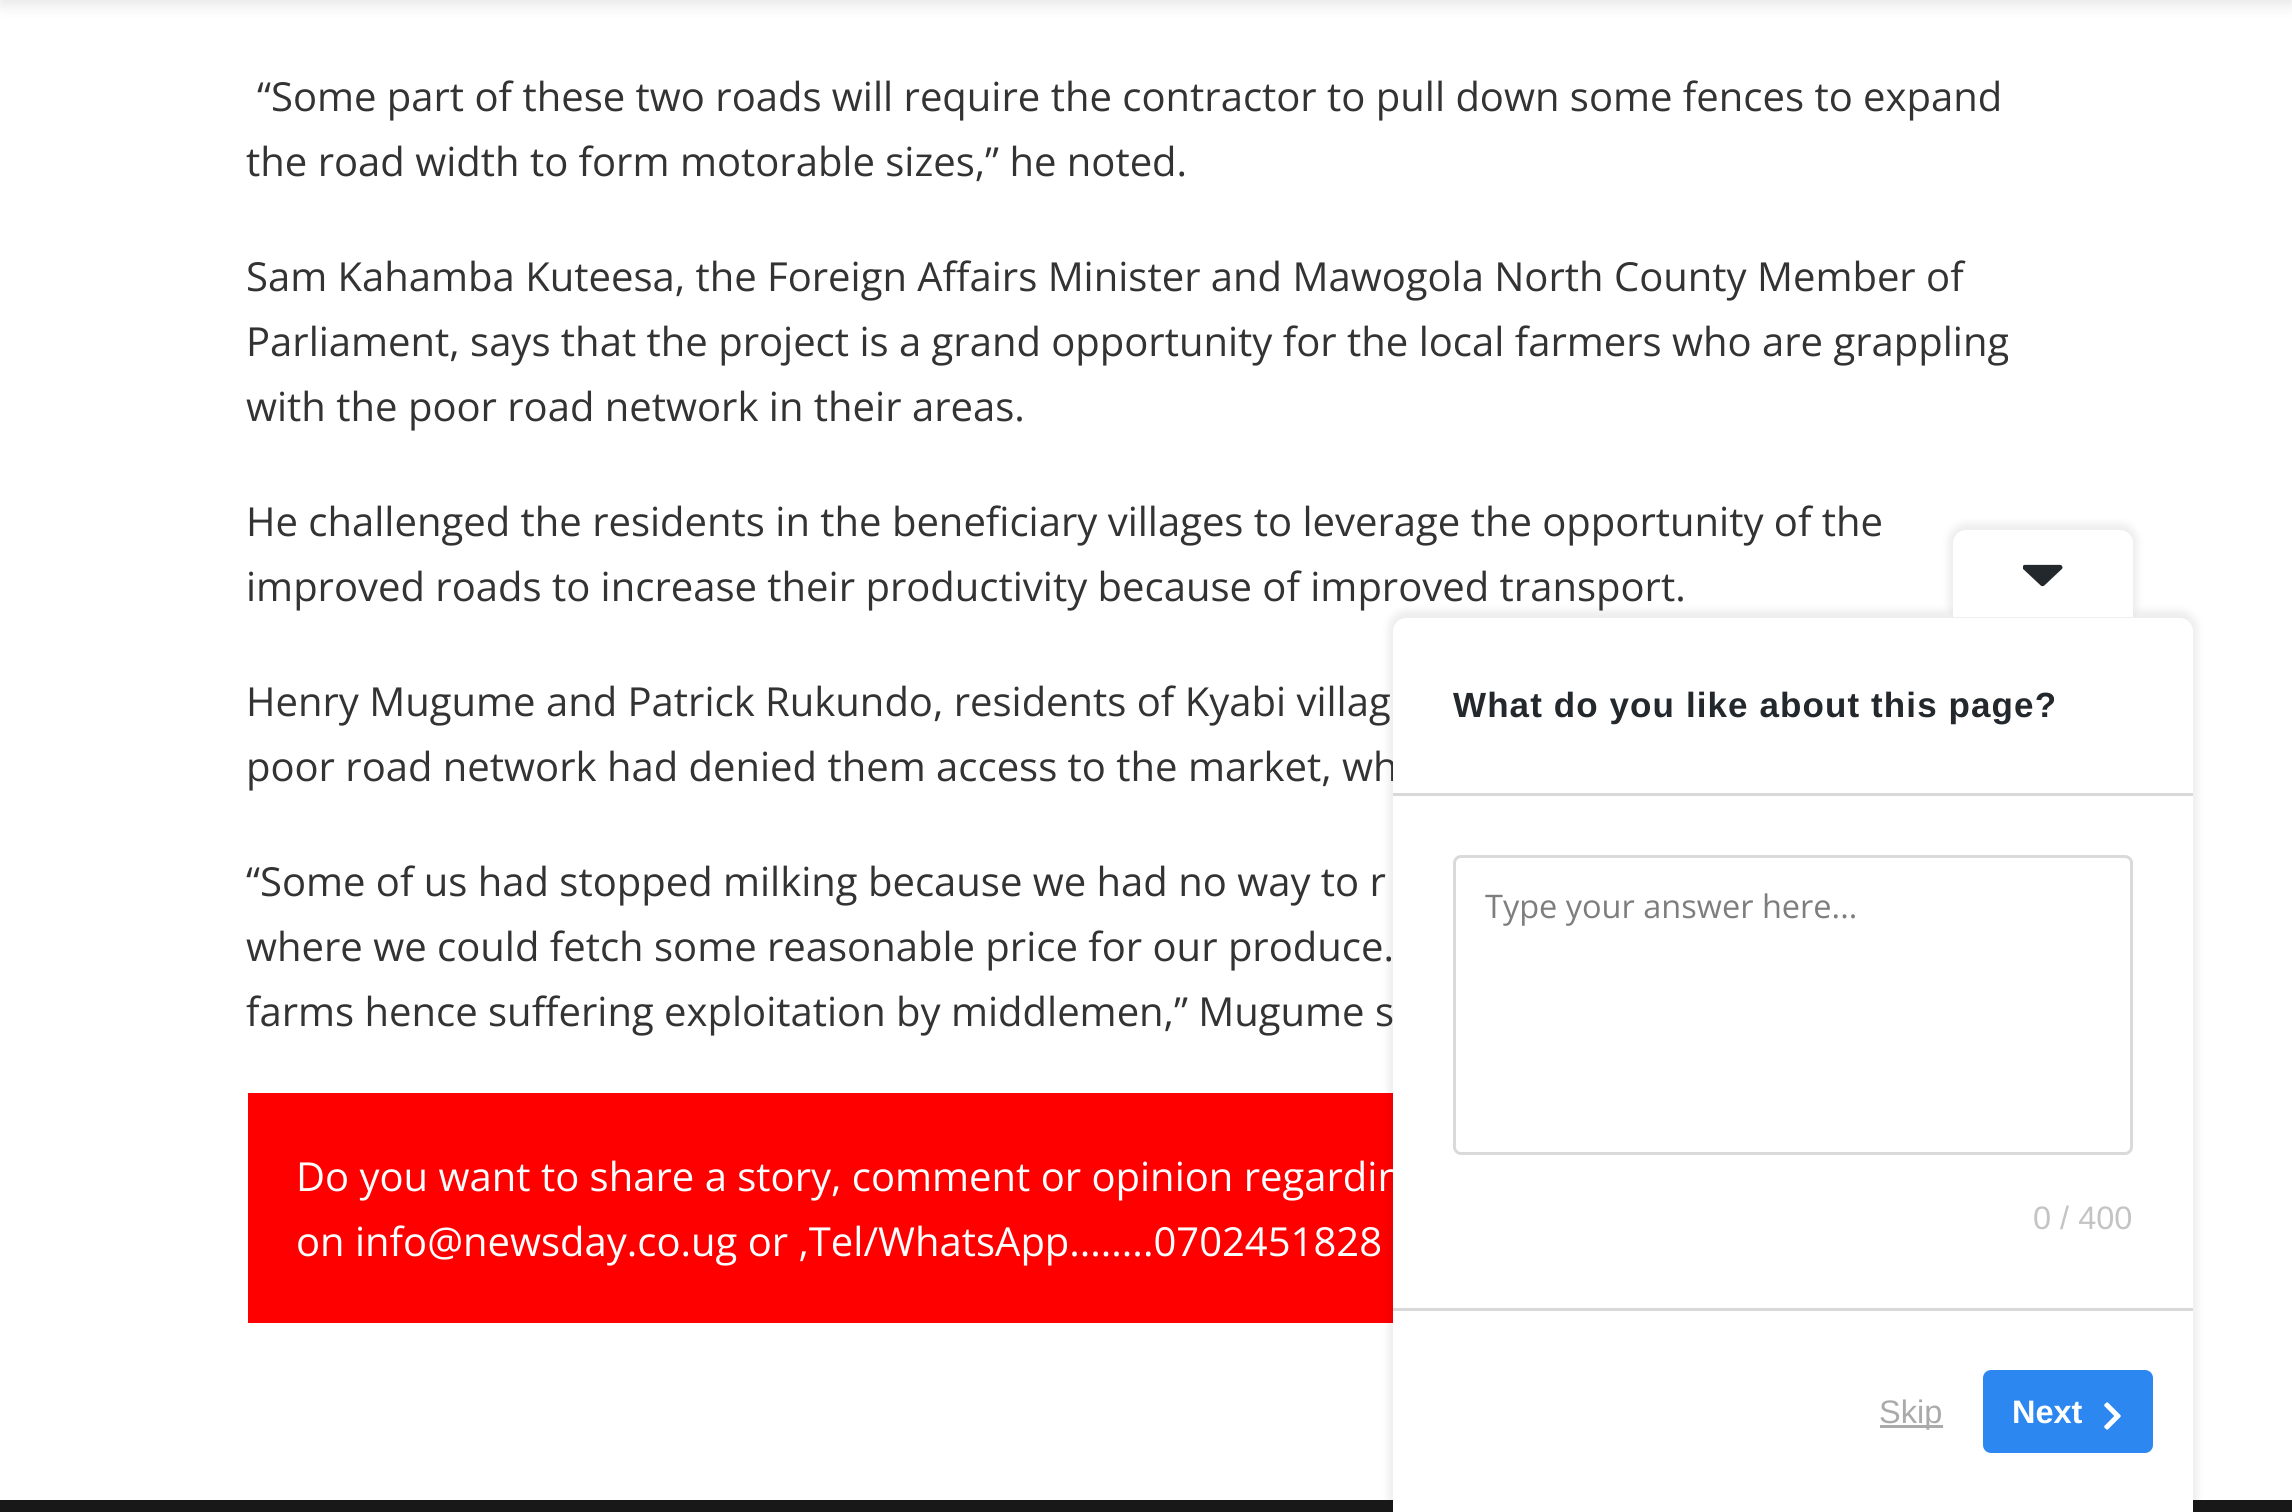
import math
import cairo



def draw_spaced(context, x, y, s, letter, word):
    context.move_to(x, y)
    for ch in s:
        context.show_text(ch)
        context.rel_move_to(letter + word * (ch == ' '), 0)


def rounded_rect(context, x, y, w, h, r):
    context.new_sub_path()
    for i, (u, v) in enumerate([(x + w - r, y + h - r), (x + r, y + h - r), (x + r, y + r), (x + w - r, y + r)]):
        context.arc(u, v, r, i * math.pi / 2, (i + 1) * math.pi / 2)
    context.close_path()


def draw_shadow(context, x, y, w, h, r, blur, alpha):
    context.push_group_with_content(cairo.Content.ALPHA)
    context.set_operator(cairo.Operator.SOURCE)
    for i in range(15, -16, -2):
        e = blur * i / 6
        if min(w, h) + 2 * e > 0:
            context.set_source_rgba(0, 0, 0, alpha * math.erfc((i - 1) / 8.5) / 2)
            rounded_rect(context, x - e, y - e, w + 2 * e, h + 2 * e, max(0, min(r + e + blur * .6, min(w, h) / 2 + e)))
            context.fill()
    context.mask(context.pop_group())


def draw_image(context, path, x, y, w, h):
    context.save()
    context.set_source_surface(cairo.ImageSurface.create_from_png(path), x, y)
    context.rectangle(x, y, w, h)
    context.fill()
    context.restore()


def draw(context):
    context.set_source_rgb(1, 1, 1)
    context.paint()
    context.set_source_rgb(0, 0, 0)
    draw_shadow(context, 0, -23, 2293, 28, 0, 7.5, 0.1)
    context.set_source_rgb(1, 0, 0)
    context.rectangle(248, 1093, 1145, 230)
    context.fill()
    context.set_source_rgb(25 / 255, 24 / 255, 24 / 255)
    context.rectangle(0, 1500, 2292, 12)
    context.fill()
    context.set_source_rgb(0, 0, 0)
    draw_shadow(context, 1388, 610, 810, 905, 18, 4, 0.07)
    context.select_font_face("Open Sans")
    context.set_font_size(40)
    context.set_source_rgb(51 / 255, 51 / 255, 51 / 255)
    context.move_to(257, 111)
    context.show_text("“Some part of these two roads will require the contractor to pull down some fences to expand")
    context.move_to(246, 176)
    context.show_text("the road width to form motorable sizes,” he noted.")
    context.move_to(246, 291)
    context.show_text("Sam Kahamba Kuteesa, the Foreign Affairs Minister and Mawogola North County Member of")
    context.move_to(246, 356)
    context.show_text("Parliament, says that the project is a grand opportunity for the local farmers who are grappling")
    context.move_to(246, 421)
    context.show_text("with the poor road network in their areas.")
    context.move_to(246, 536)
    context.show_text("He challenged the residents in the beneficiary villages to leverage the opportunity of the")
    context.move_to(246, 601)
    context.show_text("improved roads to increase their productivity because of improved transport.")
    context.move_to(246, 716)
    context.show_text("Henry Mugume and Patrick Rukundo, residents of Kyabi villag")
    context.move_to(246, 781)
    context.show_text("poor road network had denied them access to the market, wh")
    context.move_to(246, 896)
    context.show_text("“Some of us had stopped milking because we had no way to r")
    context.move_to(246, 961)
    context.show_text("where we could fetch some reasonable price for our produce.")
    context.move_to(246, 1026)
    context.show_text("farms hence suffering exploitation by middlemen,” Mugume s")
    context.set_source_rgb(1, 1, 1)
    context.move_to(296, 1191)
    context.show_text("Do you want to share a story, comment or opinion regardin")
    context.move_to(296, 1256)
    context.show_text("on info@newsday.co.ug or ,Tel/WhatsApp........0702451828")
    context.new_path()
    context.move_to(1406, 618)
    context.line_to(2180, 618)
    context.curve_to(2187, 618, 2193, 624, 2193, 631)
    context.line_to(2193, 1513)
    context.line_to(1393, 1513)
    context.line_to(1393, 631)
    context.curve_to(1393, 624, 1399, 618, 1406, 618)
    context.close_path()
    context.fill()
    context.save()
    context.new_path()
    context.move_to(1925.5, 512)
    context.line_to(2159.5, 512)
    context.line_to(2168.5, 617)
    context.line_to(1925.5, 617)
    context.close_path()
    context.clip()
    context.set_source_rgb(0, 0, 0)
    draw_shadow(context, 1948, 523, 190, 97, 18, 4, 0.07)
    context.restore()
    context.new_path()
    context.move_to(1966, 530)
    context.line_to(2120, 530)
    context.curve_to(2127, 530, 2133, 536, 2133, 543)
    context.line_to(2133, 617)
    context.line_to(1953, 617)
    context.line_to(1953, 543)
    context.curve_to(1953, 536, 1959, 530, 1966, 530)
    context.close_path()
    context.fill()
    draw_image(context, "images/1.png", 2023, 564, 40, 23)
    context.select_font_face("Liberation Sans", cairo.FontSlant.NORMAL, cairo.FontWeight.BOLD)
    context.set_font_size(35)
    context.set_source_rgb(35 / 255, 40 / 255, 45 / 255)
    draw_spaced(context, 1453, 717, "What do you like about this page?", 1.1, 0)
    context.set_source_rgb(217 / 255, 217 / 255, 217 / 255)
    context.rectangle(1393, 793, 800, 3)
    context.fill()
    context.rectangle(1393, 1308, 800, 3)
    context.fill()
    rounded_rect(context, 1454.5, 856.5, 677, 297, 6.5)
    context.set_source_rgb(218 / 255, 218 / 255, 218 / 255)
    context.set_line_width(3)
    context.stroke()
    context.select_font_face("Open Sans")
    context.set_font_size(32.5)
    context.set_source_rgb(126 / 255, 126 / 255, 126 / 255)
    context.move_to(1485, 918)
    context.show_text("Type your answer here...")
    context.select_font_face("Liberation Sans")
    context.set_source_rgb(196 / 255, 196 / 255, 196 / 255)
    context.move_to(2033, 1229)
    context.show_text("0 / 400")
    context.set_source_rgb(170 / 255, 170 / 255, 170 / 255)
    context.rectangle(1880, 1425, 63, 3)
    context.fill()
    context.move_to(1879, 1423)
    context.show_text("Skip")
    context.set_source_rgb(45 / 255, 135 / 255, 241 / 255)
    rounded_rect(context, 1983, 1370, 170, 83, 8)
    context.fill()
    context.select_font_face("Liberation Sans", cairo.FontSlant.NORMAL, cairo.FontWeight.BOLD)
    context.set_source_rgb(1, 1, 1)
    context.move_to(2012, 1423)
    context.show_text("Next")
    draw_image(context, "images/2.png", 2104, 1402, 17, 28)


surface = cairo.ImageSurface(cairo.Format.RGB24, 2292, 1512)
context = cairo.Context(surface)
options = cairo.FontOptions()
options.set_hint_metrics(cairo.HintMetrics.OFF)
options.set_hint_style(cairo.HintStyle.NONE)
context.set_font_options(options)
context.set_miter_limit(4)
draw(context)
surface.write_to_png("out.png")
